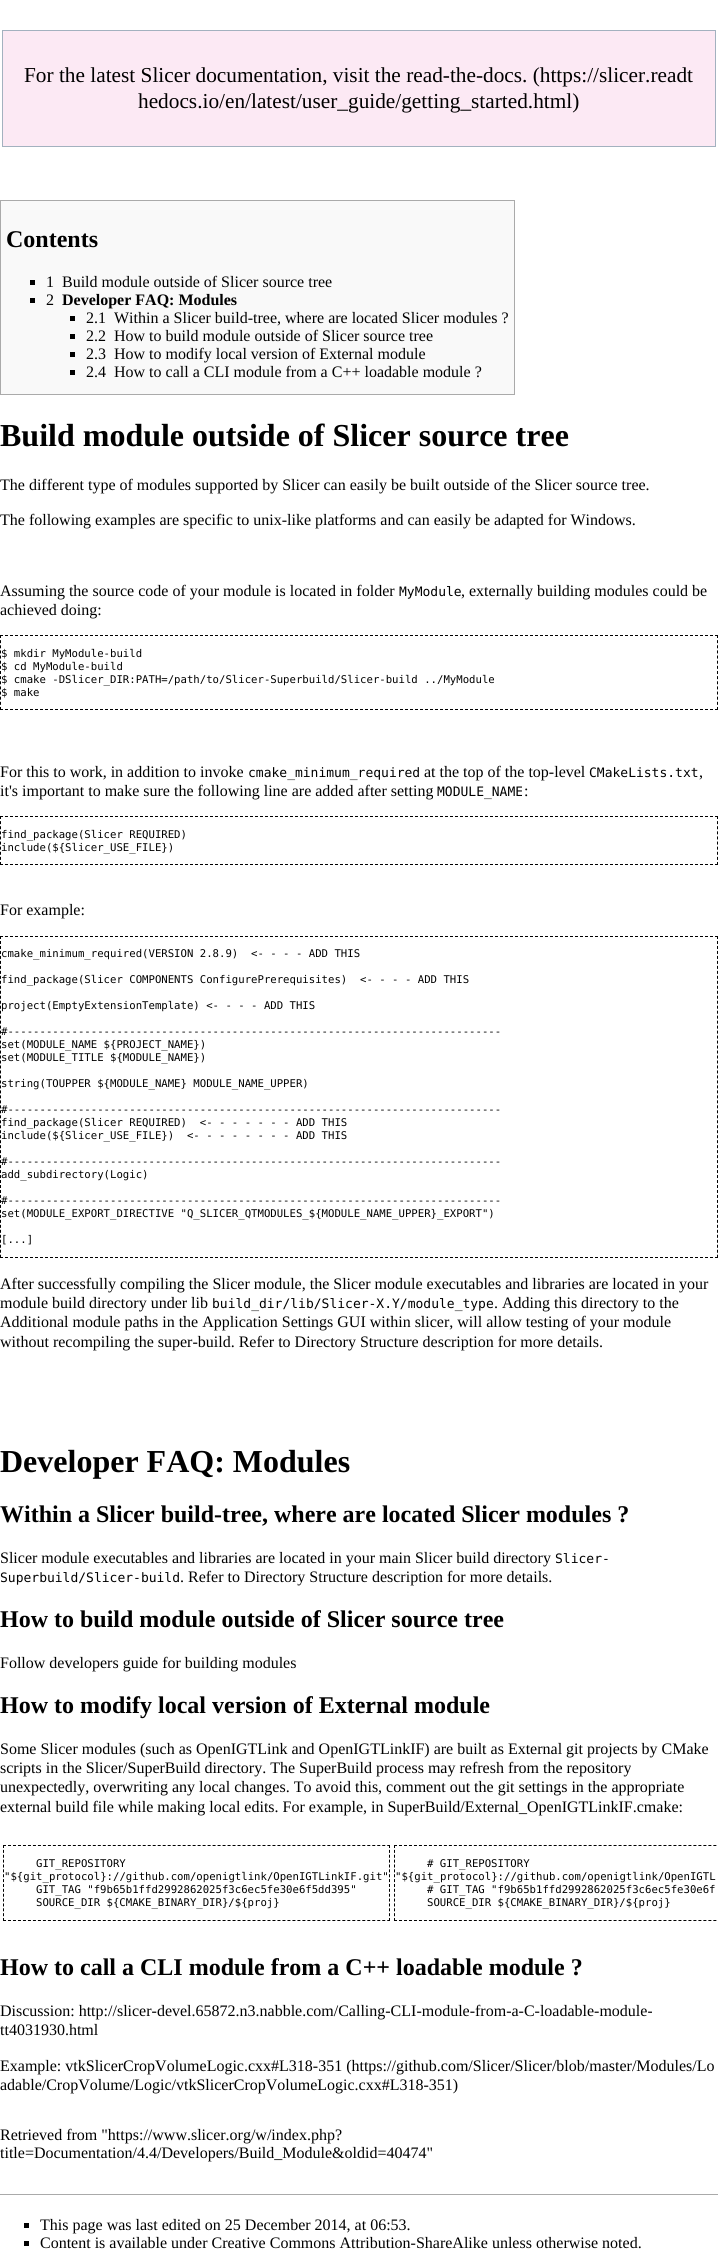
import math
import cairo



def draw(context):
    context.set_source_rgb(1, 1, 1)
    context.paint()
    context.set_source_rgb(252 / 255, 233 / 255, 244 / 255)
    context.rectangle(2.5, 30.5, 713, 116)
    context.fill_preserve()
    context.set_source_rgb(163 / 255, 177 / 255, 191 / 255)
    context.set_line_width(1)
    context.stroke()
    context.set_source_rgb(249 / 255, 249 / 255, 249 / 255)
    context.rectangle(0.5, 200.5, 514, 194)
    context.fill_preserve()
    context.set_source_rgb(170 / 255, 170 / 255, 170 / 255)
    context.stroke()
    context.set_source_rgb(0, 0, 0)
    context.rectangle(30, 280, 5, 5)
    context.fill()
    context.rectangle(30, 298, 5, 5)
    context.fill()
    context.rectangle(70, 316, 5, 5)
    context.fill()
    context.rectangle(70, 334, 5, 5)
    context.fill()
    context.rectangle(70, 352, 5, 5)
    context.fill()
    context.rectangle(70, 370, 5, 5)
    context.fill()
    context.new_path()
    context.move_to(0, 635.5)
    context.line_to(718, 635.5)
    context.set_dash([3, 2])
    context.stroke()
    context.new_path()
    context.move_to(717.5, 635)
    context.line_to(717.5, 710)
    context.set_dash([3, 2.14])
    context.stroke()
    context.new_path()
    context.move_to(0, 709.5)
    context.line_to(718, 709.5)
    context.set_dash([3, 2])
    context.stroke()
    context.new_path()
    context.move_to(0.5, 635)
    context.line_to(0.5, 710)
    context.set_dash([3, 2.14])
    context.stroke()
    context.new_path()
    context.move_to(0, 816.5)
    context.line_to(718, 816.5)
    context.set_dash([3, 2])
    context.stroke()
    context.new_path()
    context.move_to(717.5, 816)
    context.line_to(717.5, 865)
    context.set_dash([3, 2.11])
    context.stroke()
    context.new_path()
    context.move_to(0, 864.5)
    context.line_to(718, 864.5)
    context.set_dash([3, 2])
    context.stroke()
    context.new_path()
    context.move_to(0.5, 816)
    context.line_to(0.5, 865)
    context.set_dash([3, 2.11])
    context.stroke()
    context.new_path()
    context.move_to(0, 936.5)
    context.line_to(718, 936.5)
    context.set_dash([3, 2])
    context.stroke()
    context.new_path()
    context.move_to(717.5, 936)
    context.line_to(717.5, 1258)
    context.set_dash([3, 1.98])
    context.stroke()
    context.new_path()
    context.move_to(0, 1257.5)
    context.line_to(718, 1257.5)
    context.set_dash([3, 2])
    context.stroke()
    context.new_path()
    context.move_to(0.5, 936)
    context.line_to(0.5, 1258)
    context.set_dash([3, 1.98])
    context.stroke()
    context.new_path()
    context.move_to(3, 1845.5)
    context.line_to(390, 1845.5)
    context.set_dash([3, 1.99])
    context.stroke()
    context.new_path()
    context.move_to(389.5, 1845)
    context.line_to(389.5, 1921)
    context.set_dash([3, 1.87])
    context.stroke()
    context.new_path()
    context.move_to(3, 1920.5)
    context.line_to(390, 1920.5)
    context.set_dash([3, 1.99])
    context.stroke()
    context.new_path()
    context.move_to(3.5, 1845)
    context.line_to(3.5, 1921)
    context.set_dash([3, 1.87])
    context.stroke()
    context.new_path()
    context.move_to(394, 1845.5)
    context.line_to(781, 1845.5)
    context.set_dash([3, 1.99])
    context.stroke()
    context.new_path()
    context.move_to(394, 1920.5)
    context.line_to(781, 1920.5)
    context.stroke()
    context.new_path()
    context.move_to(394.5, 1845)
    context.line_to(394.5, 1921)
    context.set_dash([3, 1.87])
    context.stroke()
    context.set_source_rgb(170 / 255, 170 / 255, 170 / 255)
    context.rectangle(0, 2194, 718, 1)
    context.fill()
    context.set_source_rgb(0, 0, 0)
    context.rectangle(24, 2223, 5, 5)
    context.fill()
    context.rectangle(24, 2241, 5, 5)
    context.fill()
    context.select_font_face("Liberation Serif")
    context.set_font_size(21.3)
    context.move_to(24, 82)
    context.show_text("For the latest Slicer documentation, visit the read-the-docs. (https://slicer.readt")
    context.move_to(138, 108)
    context.show_text("hedocs.io/en/latest/user_guide/getting_started.html)")
    context.select_font_face("Liberation Serif", cairo.FontSlant.NORMAL, cairo.FontWeight.BOLD)
    context.set_font_size(24)
    context.move_to(6, 247)
    context.show_text("Contents")
    context.select_font_face("Liberation Serif")
    context.set_font_size(16)
    context.move_to(46, 287)
    context.show_text("1")
    context.move_to(62, 287)
    context.show_text("Build module outside of Slicer source tree")
    context.move_to(46, 305)
    context.show_text("2")
    context.select_font_face("Liberation Serif", cairo.FontSlant.NORMAL, cairo.FontWeight.BOLD)
    context.move_to(62, 305)
    context.show_text("Developer FAQ: Modules")
    context.select_font_face("Liberation Serif")
    context.move_to(86, 323)
    context.show_text("2.1")
    context.move_to(114, 323)
    context.show_text("Within a Slicer build-tree, where are located Slicer modules ?")
    context.move_to(86, 341)
    context.show_text("2.2")
    context.move_to(114, 341)
    context.show_text("How to build module outside of Slicer source tree")
    context.move_to(86, 359)
    context.show_text("2.3")
    context.move_to(114, 359)
    context.show_text("How to modify local version of External module")
    context.move_to(86, 377)
    context.show_text("2.4")
    context.move_to(114, 377)
    context.show_text("How to call a CLI module from a C++ loadable module ?")
    context.select_font_face("Liberation Serif", cairo.FontSlant.NORMAL, cairo.FontWeight.BOLD)
    context.set_font_size(32)
    context.move_to(0, 446)
    context.show_text("Build module outside of Slicer source tree")
    context.select_font_face("Liberation Serif")
    context.set_font_size(16)
    context.move_to(0, 490)
    context.show_text("The different type of modules supported by Slicer can easily be built outside of the Slicer source tree.")
    context.move_to(0, 525)
    context.show_text("The following examples are specific to unix-like platforms and can easily be adapted for Windows.")
    context.move_to(0, 596)
    context.show_text("Assuming the source code of your module is located in folder")
    context.select_font_face("DejaVu Sans Mono")
    context.set_font_size(13)
    context.move_to(399, 596)
    context.show_text("MyModule")
    context.select_font_face("Liberation Serif")
    context.set_font_size(16)
    context.move_to(461, 596)
    context.show_text(", externally building modules could be")
    context.move_to(0, 615)
    context.show_text("achieved doing:")
    context.select_font_face("DejaVu Sans Mono")
    context.set_font_size(10.65)
    context.move_to(1, 657)
    context.show_text("$ mkdir MyModule-build")
    context.move_to(1, 670)
    context.show_text("$ cd MyModule-build")
    context.move_to(1, 683)
    context.show_text("$ cmake -DSlicer_DIR:PATH=/path/to/Slicer-Superbuild/Slicer-build ../MyModule")
    context.move_to(1, 696)
    context.show_text("$ make")
    context.select_font_face("Liberation Serif")
    context.set_font_size(16)
    context.move_to(0, 777)
    context.show_text("For this to work, in addition to invoke")
    context.select_font_face("DejaVu Sans Mono")
    context.set_font_size(13)
    context.move_to(248, 777)
    context.show_text("cmake_minimum_required")
    context.select_font_face("Liberation Serif")
    context.set_font_size(16)
    context.move_to(424, 777)
    context.show_text("at the top of the top-level")
    context.select_font_face("DejaVu Sans Mono")
    context.set_font_size(13)
    context.move_to(589, 777)
    context.show_text("CMakeLists.txt")
    context.select_font_face("Liberation Serif")
    context.set_font_size(16)
    context.move_to(699, 777)
    context.show_text(",")
    context.move_to(0, 796)
    context.show_text("it's important to make sure the following line are added after setting")
    context.select_font_face("DejaVu Sans Mono")
    context.set_font_size(13)
    context.move_to(437, 796)
    context.show_text("MODULE_NAME")
    context.select_font_face("Liberation Serif")
    context.set_font_size(16)
    context.move_to(524, 796)
    context.show_text(":")
    context.select_font_face("DejaVu Sans Mono")
    context.set_font_size(10.65)
    context.move_to(1, 838)
    context.show_text("find_package(Slicer REQUIRED)")
    context.move_to(1, 851)
    context.show_text("include(${Slicer_USE_FILE})")
    context.select_font_face("Liberation Serif")
    context.set_font_size(16)
    context.move_to(0, 915)
    context.show_text("For example:")
    context.select_font_face("DejaVu Sans Mono")
    context.set_font_size(10.65)
    context.move_to(1, 957)
    context.show_text("cmake_minimum_required(VERSION 2.8.9)  <- - - - ADD THIS")
    context.move_to(1, 983)
    context.show_text("find_package(Slicer COMPONENTS ConfigurePrerequisites)  <- - - - ADD THIS")
    context.move_to(1, 1009)
    context.show_text("project(EmptyExtensionTemplate) <- - - - ADD THIS")
    context.move_to(1, 1035)
    context.show_text("#-----------------------------------------------------------------------------")
    context.move_to(1, 1048)
    context.show_text("set(MODULE_NAME ${PROJECT_NAME})")
    context.move_to(1, 1061)
    context.show_text("set(MODULE_TITLE ${MODULE_NAME})")
    context.move_to(1, 1087)
    context.show_text("string(TOUPPER ${MODULE_NAME} MODULE_NAME_UPPER)")
    context.move_to(1, 1113)
    context.show_text("#-----------------------------------------------------------------------------")
    context.move_to(1, 1126)
    context.show_text("find_package(Slicer REQUIRED)  <- - - - - - - ADD THIS")
    context.move_to(1, 1139)
    context.show_text("include(${Slicer_USE_FILE})  <- - - - - - - - ADD THIS")
    context.move_to(1, 1165)
    context.show_text("#-----------------------------------------------------------------------------")
    context.move_to(1, 1178)
    context.show_text("add_subdirectory(Logic)")
    context.move_to(1, 1204)
    context.show_text("#-----------------------------------------------------------------------------")
    context.move_to(1, 1217)
    context.show_text("set(MODULE_EXPORT_DIRECTIVE \"Q_SLICER_QTMODULES_${MODULE_NAME_UPPER}_EXPORT\")")
    context.move_to(1, 1243)
    context.show_text("[...]")
    context.select_font_face("Liberation Serif")
    context.set_font_size(16)
    context.move_to(0, 1289)
    context.show_text("After successfully compiling the Slicer module, the Slicer module executables and libraries are located in your")
    context.move_to(0, 1308)
    context.show_text("module build directory under lib")
    context.select_font_face("DejaVu Sans Mono")
    context.set_font_size(13)
    context.move_to(212, 1308)
    context.show_text("build_dir/lib/Slicer-X.Y/module_type")
    context.select_font_face("Liberation Serif")
    context.set_font_size(16)
    context.move_to(494, 1308)
    context.show_text(". Adding this directory to the")
    context.move_to(0, 1327)
    context.show_text("Additional module paths in the Application Settings GUI within slicer, will allow testing of your module")
    context.move_to(0, 1347)
    context.show_text("without recompiling the super-build. Refer to Directory Structure description for more details.")
    context.select_font_face("Liberation Serif", cairo.FontSlant.NORMAL, cairo.FontWeight.BOLD)
    context.set_font_size(32)
    context.move_to(0, 1472)
    context.show_text("Developer FAQ: Modules")
    context.set_font_size(24)
    context.move_to(0, 1522)
    context.show_text("Within a Slicer build-tree, where are located Slicer modules ?")
    context.select_font_face("Liberation Serif")
    context.set_font_size(16)
    context.move_to(0, 1563)
    context.show_text("Slicer module executables and libraries are located in your main Slicer build directory")
    context.select_font_face("DejaVu Sans Mono")
    context.set_font_size(13)
    context.move_to(555, 1563)
    context.show_text("Slicer-")
    context.move_to(0, 1582)
    context.show_text("Superbuild/Slicer-build")
    context.select_font_face("Liberation Serif")
    context.set_font_size(16)
    context.move_to(180, 1582)
    context.show_text(". Refer to Directory Structure description for more details.")
    context.select_font_face("Liberation Serif", cairo.FontSlant.NORMAL, cairo.FontWeight.BOLD)
    context.set_font_size(24)
    context.move_to(0, 1627)
    context.show_text("How to build module outside of Slicer source tree")
    context.select_font_face("Liberation Serif")
    context.set_font_size(16)
    context.move_to(0, 1668)
    context.show_text("Follow developers guide for building modules")
    context.select_font_face("Liberation Serif", cairo.FontSlant.NORMAL, cairo.FontWeight.BOLD)
    context.set_font_size(24)
    context.move_to(0, 1713)
    context.show_text("How to modify local version of External module")
    context.select_font_face("Liberation Serif")
    context.set_font_size(16)
    context.move_to(0, 1754)
    context.show_text("Some Slicer modules (such as OpenIGTLink and OpenIGTLinkIF) are built as External git projects by CMake")
    context.move_to(0, 1773)
    context.show_text("scripts in the Slicer/SuperBuild directory. The SuperBuild process may refresh from the repository")
    context.move_to(0, 1792)
    context.show_text("unexpectedly, overwriting any local changes. To avoid this, comment out the git settings in the appropriate")
    context.move_to(0, 1812)
    context.show_text("external build file while making local edits. For example, in SuperBuild/External_OpenIGTLinkIF.cmake:")
    context.select_font_face("DejaVu Sans Mono")
    context.set_font_size(10.65)
    context.move_to(36, 1867)
    context.show_text("GIT_REPOSITORY")
    context.move_to(4, 1880)
    context.show_text("\"${git_protocol}://github.com/openigtlink/OpenIGTLinkIF.git\"")
    context.move_to(36, 1893)
    context.show_text("GIT_TAG \"f9b65b1ffd2992862025f3c6ec5fe30e6f5dd395\"")
    context.move_to(36, 1906)
    context.show_text("SOURCE_DIR ${CMAKE_BINARY_DIR}/${proj}")
    context.move_to(427, 1867)
    context.show_text("# GIT_REPOSITORY")
    context.move_to(395, 1880)
    context.show_text("\"${git_protocol}://github.com/openigtlink/OpenIGTL")
    context.move_to(427, 1893)
    context.show_text("# GIT_TAG \"f9b65b1ffd2992862025f3c6ec5fe30e6f")
    context.move_to(427, 1906)
    context.show_text("SOURCE_DIR ${CMAKE_BINARY_DIR}/${proj}")
    context.select_font_face("Liberation Serif", cairo.FontSlant.NORMAL, cairo.FontWeight.BOLD)
    context.set_font_size(24)
    context.move_to(0, 1975)
    context.show_text("How to call a CLI module from a C++ loadable module ?")
    context.select_font_face("Liberation Serif")
    context.set_font_size(16)
    context.move_to(0, 2016)
    context.show_text("Discussion: http://slicer-devel.65872.n3.nabble.com/Calling-CLI-module-from-a-C-loadable-module-")
    context.move_to(0, 2035)
    context.show_text("tt4031930.html")
    context.move_to(0, 2071)
    context.show_text("Example: vtkSlicerCropVolumeLogic.cxx#L318-351 (https://github.com/Slicer/Slicer/blob/master/Modules/Lo")
    context.move_to(0, 2090)
    context.show_text("adable/CropVolume/Logic/vtkSlicerCropVolumeLogic.cxx#L318-351)")
    context.move_to(0, 2140)
    context.show_text("Retrieved from \"https://www.slicer.org/w/index.php?")
    context.move_to(0, 2158)
    context.show_text("title=Documentation/4.4/Developers/Build_Module&oldid=40474\"")
    context.move_to(40, 2230)
    context.show_text("This page was last edited on 25 December 2014, at 06:53.")
    context.move_to(40, 2248)
    context.show_text("Content is available under Creative Commons Attribution-ShareAlike unless otherwise noted.")


surface = cairo.ImageSurface(cairo.Format.RGB24, 718, 2253)
context = cairo.Context(surface)
options = cairo.FontOptions()
options.set_hint_metrics(cairo.HintMetrics.OFF)
options.set_hint_style(cairo.HintStyle.NONE)
context.set_font_options(options)
context.set_miter_limit(4)
draw(context)
surface.write_to_png("out.png")
